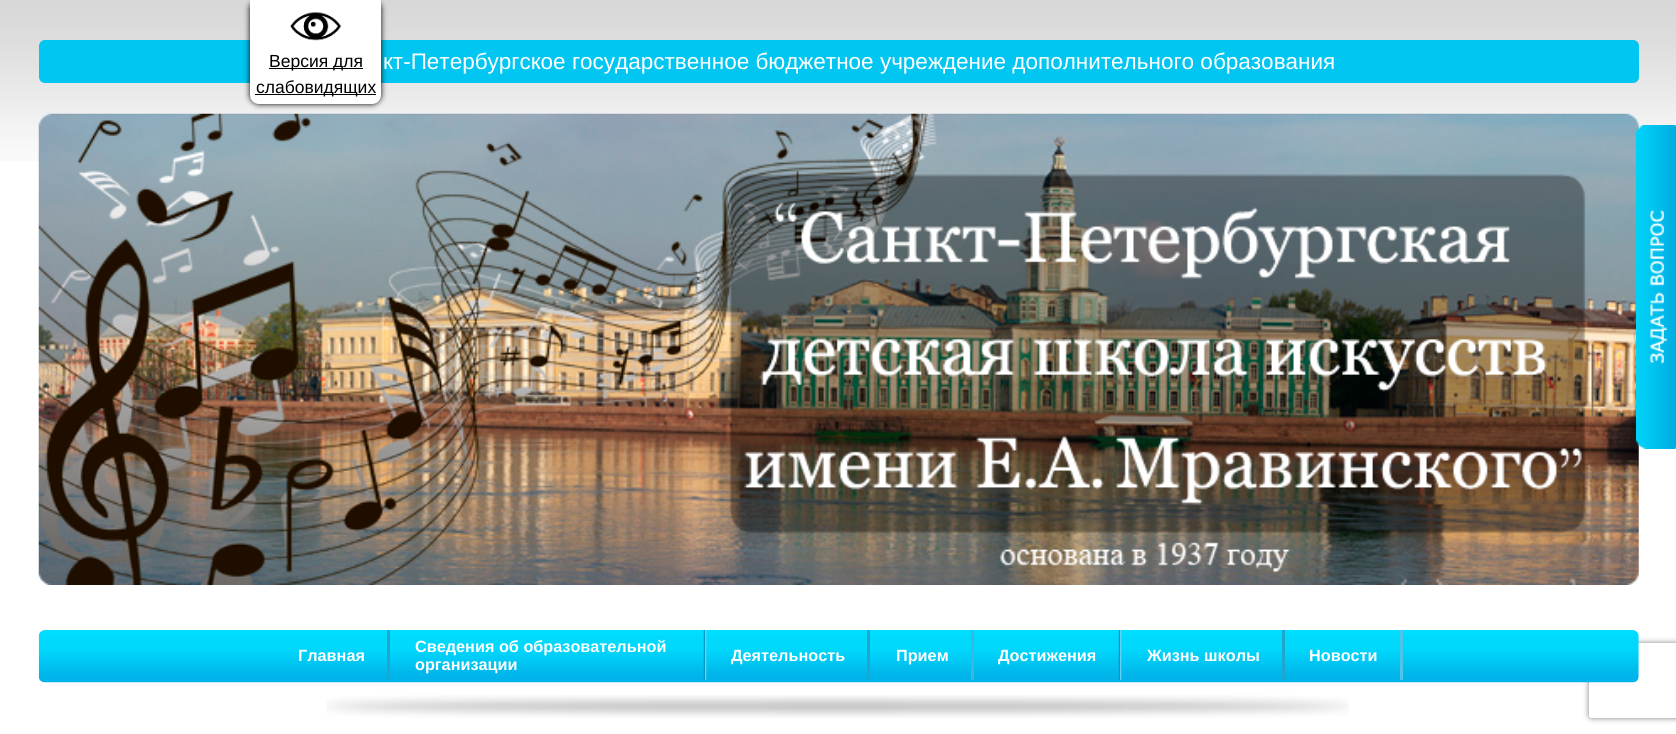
import math
import cairo



def rounded_rect(context, x, y, w, h, r):
    context.new_sub_path()
    for i, (u, v) in enumerate([(x + w - r, y + h - r), (x + r, y + h - r), (x + r, y + r), (x + w - r, y + r)]):
        context.arc(u, v, r, i * math.pi / 2, (i + 1) * math.pi / 2)
    context.close_path()


def draw_shadow(context, x, y, w, h, r, blur, alpha):
    context.push_group_with_content(cairo.Content.ALPHA)
    context.set_operator(cairo.Operator.SOURCE)
    for i in range(15, -16, -2):
        e = blur * i / 6
        if min(w, h) + 2 * e > 0:
            context.set_source_rgba(0, 0, 0, alpha * math.erfc((i - 1) / 8.5) / 2)
            rounded_rect(context, x - e, y - e, w + 2 * e, h + 2 * e, max(0, min(r + e + blur * .6, min(w, h) / 2 + e)))
            context.fill()
    context.mask(context.pop_group())


def draw_image(context, path, x, y, w, h):
    context.save()
    context.set_source_surface(cairo.ImageSurface.create_from_png(path), x, y)
    context.rectangle(x, y, w, h)
    context.fill()
    context.restore()


def draw(context):
    context.set_source_rgb(1, 1, 1)
    context.paint()
    draw_image(context, "images/1.png", 0, 0, 1676, 161)
    context.set_source_rgb(0, 198 / 255, 241 / 255)
    rounded_rect(context, 39, 40, 1600, 43, 6)
    context.fill()
    draw_image(context, "images/2.png", 38, 113, 1601, 472)
    draw_image(context, "images/3.png", 1636, 125, 40, 324)
    context.save()
    context.set_fill_rule(cairo.FillRule.EVEN_ODD)
    context.new_path()
    context.move_to(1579, 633)
    context.line_to(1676, 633)
    context.line_to(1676, 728)
    context.line_to(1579, 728)
    context.close_path()
    context.move_to(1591.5, 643)
    context.line_to(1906.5, 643)
    context.curve_to(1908, 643, 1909, 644, 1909, 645.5)
    context.line_to(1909, 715.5)
    context.curve_to(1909, 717, 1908, 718, 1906.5, 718)
    context.line_to(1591.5, 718)
    context.curve_to(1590, 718, 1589, 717, 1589, 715.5)
    context.line_to(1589, 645.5)
    context.curve_to(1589, 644, 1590, 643, 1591.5, 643)
    context.close_path()
    context.clip()
    context.set_source_rgb(128 / 255, 128 / 255, 128 / 255)
    draw_shadow(context, 1589, 643, 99, 75, 2.5, 3, 1)
    context.restore()
    draw_image(context, "images/4.png", 38, 630, 1601, 53)
    context.set_source_rgb(30 / 255, 166 / 255, 209 / 255)
    context.rectangle(387, 630, 3, 50)
    context.fill()
    draw_image(context, "images/5.png", 703, 630, 4, 50)
    context.rectangle(867, 630, 3, 50)
    context.fill()
    context.set_source_rgb(58 / 255, 183 / 255, 223 / 255)
    context.rectangle(971, 630, 3, 50)
    context.fill()
    draw_image(context, "images/5.png", 1118, 630, 4, 50)
    context.set_source_rgb(30 / 255, 166 / 255, 209 / 255)
    context.rectangle(1282, 630, 3, 50)
    context.fill()
    context.set_source_rgb(79 / 255, 196 / 255, 233 / 255)
    context.rectangle(1400, 630, 3, 50)
    context.fill()
    draw_image(context, "images/6.png", 326, 695, 1023, 23)
    context.set_source_rgb(0, 0, 0)
    draw_shadow(context, 250, 0, 131, 104, 9, 3, 1)
    context.set_source_rgb(1, 1, 1)
    context.new_path()
    context.move_to(250, 0)
    context.line_to(381, 0)
    context.line_to(381, 95)
    context.curve_to(381, 100, 377, 104, 372, 104)
    context.line_to(259, 104)
    context.curve_to(254, 104, 250, 100, 250, 95)
    context.close_path()
    context.fill()
    draw_image(context, "images/7.png", 290, 12, 52, 29)
    context.set_source_rgb(0, 0, 0)
    context.rectangle(269, 68, 94, 1)
    context.fill()
    context.rectangle(255, 94, 121, 1)
    context.fill()
    context.select_font_face("Liberation Sans")
    context.set_font_size(22.5)
    context.set_source_rgb(1, 1, 1)
    context.move_to(383, 69)
    context.show_text("кт-Петербургское государственное бюджетное учреждение дополнительного образования")
    context.select_font_face("Liberation Sans", cairo.FontSlant.NORMAL, cairo.FontWeight.BOLD)
    context.set_font_size(16.25)
    context.move_to(298, 661)
    context.show_text("Главная")
    context.move_to(415, 652)
    context.show_text("Сведения об образовательной")
    context.move_to(415, 670)
    context.show_text("организации")
    context.move_to(731, 661)
    context.show_text("Деятельность")
    context.move_to(896, 661)
    context.show_text("Прием")
    context.move_to(998, 661)
    context.show_text("Достижения")
    context.move_to(1147, 661)
    context.show_text("Жизнь школы")
    context.move_to(1309, 661)
    context.show_text("Новости")
    context.select_font_face("Liberation Sans")
    context.set_font_size(17.5)
    context.set_source_rgb(0, 0, 0)
    context.move_to(269, 67)
    context.show_text("Версия для")
    context.move_to(256, 93)
    context.show_text("слабовидящих")


surface = cairo.ImageSurface(cairo.Format.RGB24, 1676, 734)
context = cairo.Context(surface)
options = cairo.FontOptions()
options.set_hint_metrics(cairo.HintMetrics.OFF)
options.set_hint_style(cairo.HintStyle.NONE)
context.set_font_options(options)
context.set_miter_limit(4)
draw(context)
surface.write_to_png("out.png")
